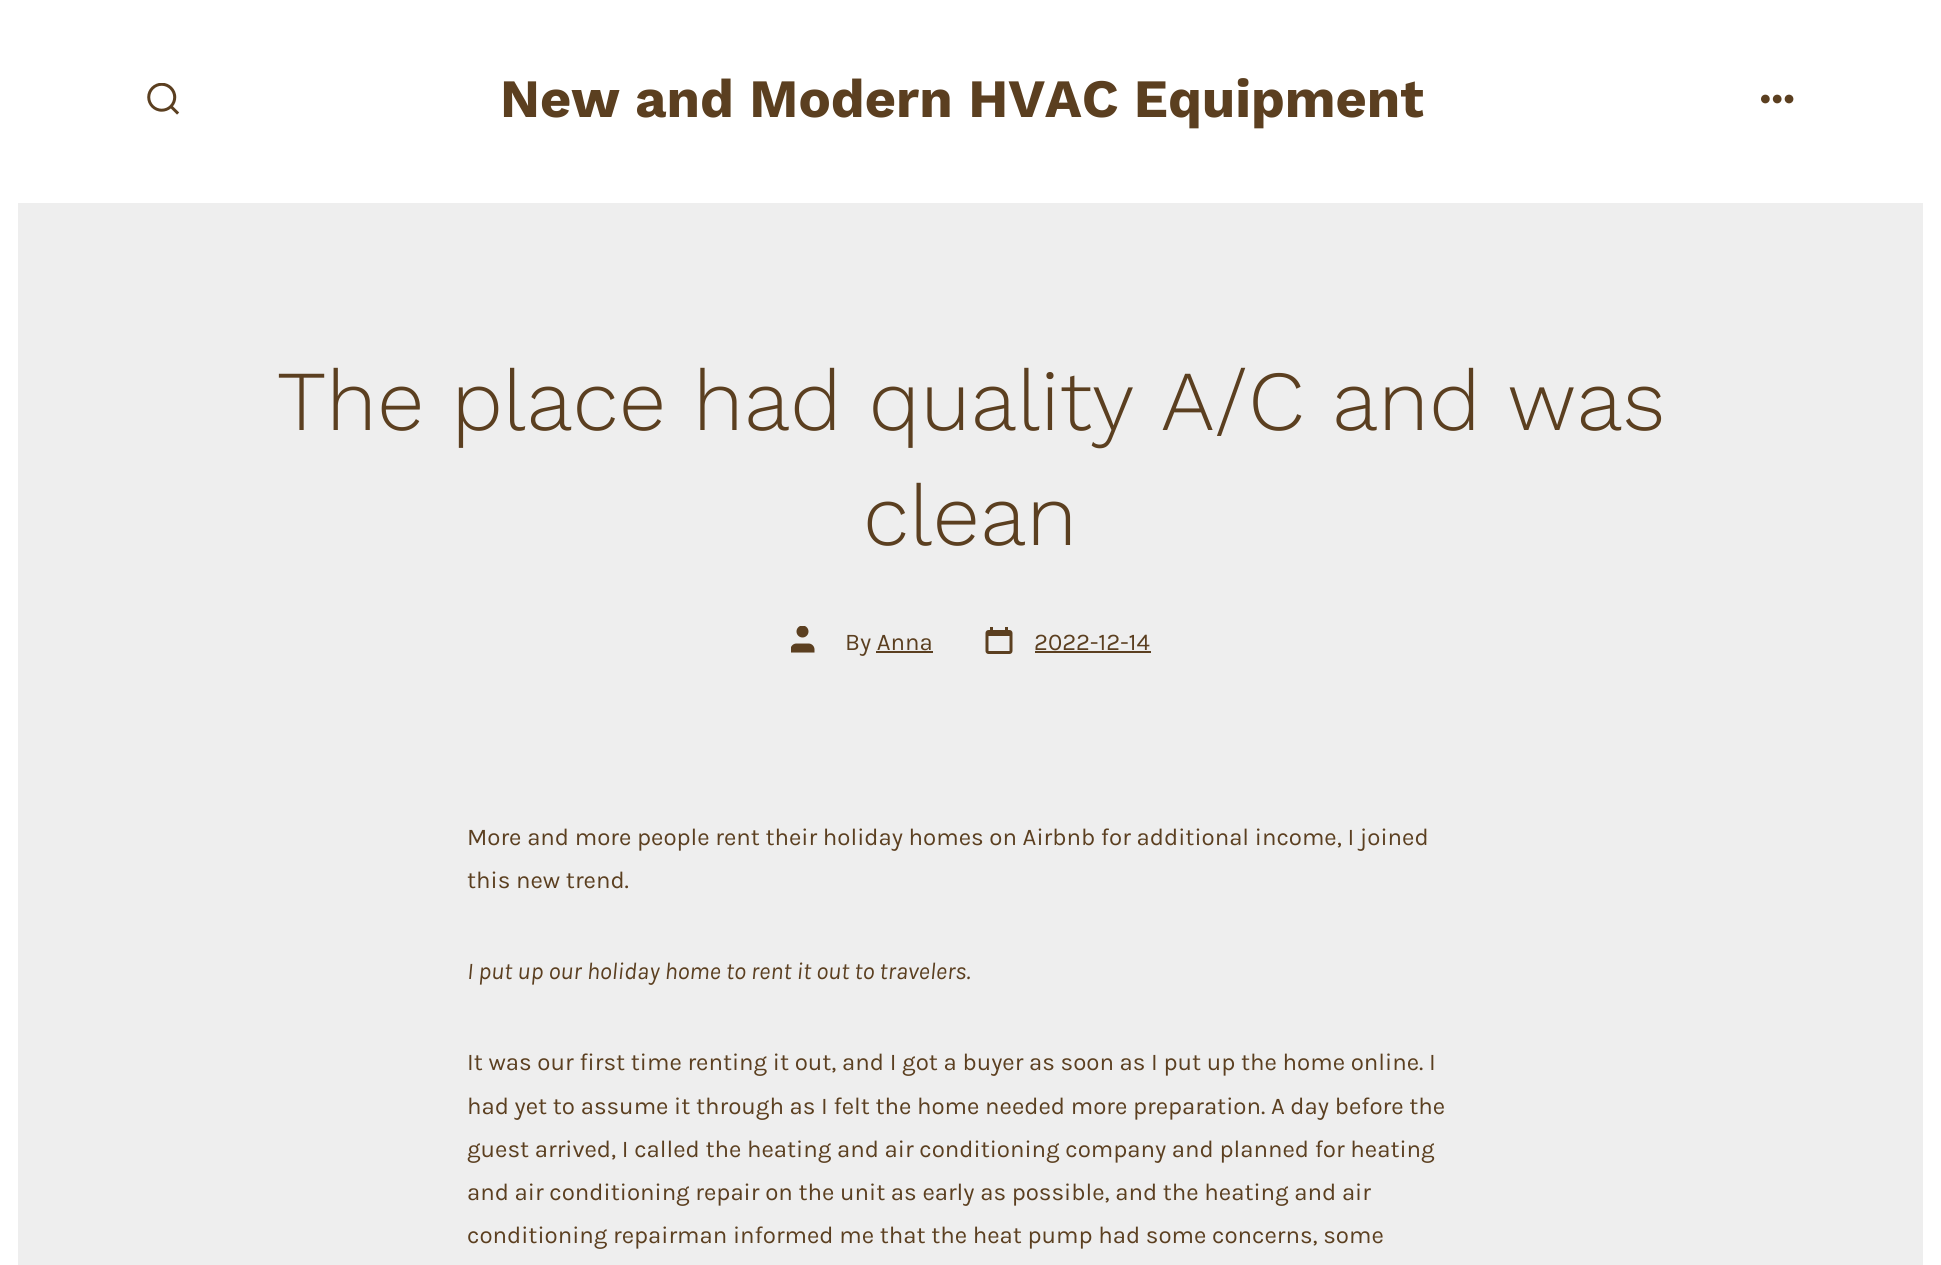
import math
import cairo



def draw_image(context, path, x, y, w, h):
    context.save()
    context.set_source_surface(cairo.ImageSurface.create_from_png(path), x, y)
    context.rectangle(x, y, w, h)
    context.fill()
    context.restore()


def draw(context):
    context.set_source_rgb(238 / 255, 238 / 255, 238 / 255)
    context.paint()
    context.set_source_rgb(1, 1, 1)
    context.rectangle(1923, 0, 18, 1265)
    context.fill()
    context.rectangle(0, 0, 18, 1265)
    context.fill()
    context.rectangle(18, 0, 1905, 203)
    context.fill()
    draw_image(context, "images/1.png", 147, 83, 33, 32)
    draw_image(context, "images/2.png", 1761, 94, 33, 10)
    draw_image(context, "images/3.png", 791, 626, 24, 27)
    context.set_source_rgb(91 / 255, 63 / 255, 32 / 255)
    context.rectangle(876, 651, 57, 2)
    context.fill()
    draw_image(context, "images/4.png", 985, 627, 28, 27)
    context.rectangle(1035, 651, 116, 2)
    context.fill()
    context.select_font_face("Work Sans", cairo.FontSlant.NORMAL, cairo.FontWeight.BOLD)
    context.set_font_size(54)
    context.move_to(500, 117)
    context.show_text("New and Modern HVAC Equipment")
    context.select_font_face("Work Sans Light")
    context.set_font_size(85.2)
    context.move_to(277, 430)
    context.show_text("The place had quality A/C and was")
    context.move_to(863, 545)
    context.show_text("clean")
    context.select_font_face("Karla")
    context.set_font_size(24)
    context.move_to(845, 650)
    context.show_text("By Anna")
    context.move_to(1034, 650)
    context.show_text("2022-12-14")
    context.move_to(467, 845)
    context.show_text("More and more people rent their holiday homes on Airbnb for additional income, I joined")
    context.move_to(467, 888)
    context.show_text("this new trend.")
    context.select_font_face("Karla", cairo.FontSlant.ITALIC)
    context.move_to(467, 979)
    context.show_text("I put up our holiday home to rent it out to travelers.")
    context.select_font_face("Karla")
    context.move_to(467, 1070)
    context.show_text("It was our first time renting it out, and I got a buyer as soon as I put up the home online. I")
    context.move_to(467, 1114)
    context.show_text("had yet to assume it through as I felt the home needed more preparation. A day before the")
    context.move_to(467, 1157)
    context.show_text("guest arrived, I called the heating and air conditioning company and planned for heating")
    context.move_to(467, 1200)
    context.show_text("and air conditioning repair on the unit as early as possible, and the heating and air")
    context.move_to(467, 1243)
    context.show_text("conditioning repairman informed me that the heat pump had some concerns, some")


surface = cairo.ImageSurface(cairo.Format.RGB24, 1941, 1265)
context = cairo.Context(surface)
options = cairo.FontOptions()
options.set_hint_metrics(cairo.HintMetrics.OFF)
options.set_hint_style(cairo.HintStyle.NONE)
context.set_font_options(options)
context.set_miter_limit(4)
draw(context)
surface.write_to_png("out.png")
